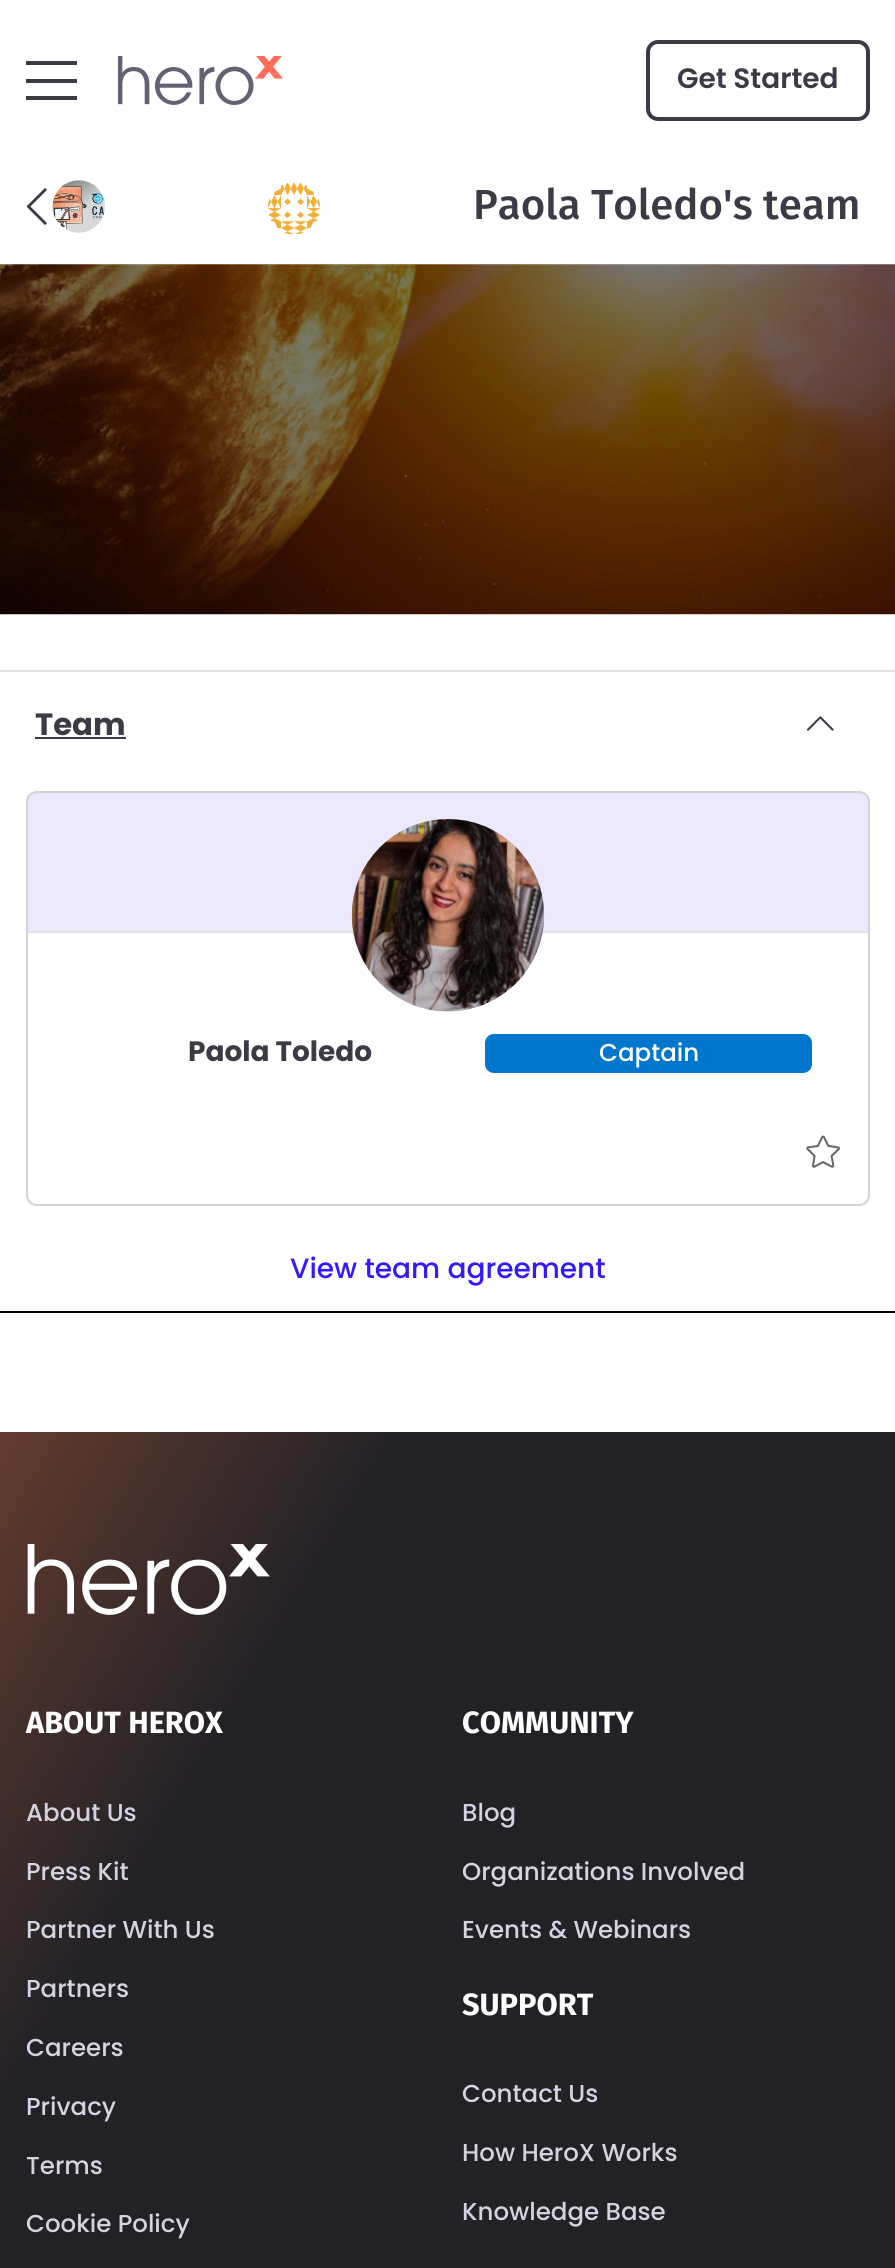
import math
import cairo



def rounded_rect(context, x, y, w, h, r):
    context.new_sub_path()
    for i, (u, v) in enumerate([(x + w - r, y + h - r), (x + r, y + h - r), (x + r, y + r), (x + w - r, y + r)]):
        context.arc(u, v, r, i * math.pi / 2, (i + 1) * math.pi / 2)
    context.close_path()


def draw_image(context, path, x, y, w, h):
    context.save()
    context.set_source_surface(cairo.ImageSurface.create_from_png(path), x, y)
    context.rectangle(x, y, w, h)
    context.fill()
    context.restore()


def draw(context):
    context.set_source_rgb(1, 1, 1)
    context.paint()
    context.set_source_rgb(61 / 255, 58 / 255, 70 / 255)
    context.rectangle(26, 61, 51, 4)
    context.fill()
    context.rectangle(26, 79, 51, 4)
    context.fill()
    context.rectangle(26, 96, 51, 4)
    context.fill()
    draw_image(context, "images/1.png", 118, 56, 165, 49)
    rounded_rect(context, 648, 42, 220, 77, 10)
    context.set_line_width(4)
    context.stroke()
    draw_image(context, "images/2.png", 26, 188, 21, 37)
    draw_image(context, "images/3.png", 52, 180, 53, 53)
    draw_image(context, "images/4.png", 267, 182, 54, 53)
    draw_image(context, "images/5.png", 0, 264, 895, 351)
    context.set_source_rgb(0, 0, 0)
    context.rectangle(0, 1311, 895, 2)
    context.fill()
    context.set_source_rgb(222 / 255, 226 / 255, 230 / 255)
    context.rectangle(0, 670, 895, 2)
    context.fill()
    context.set_source_rgb(61 / 255, 58 / 255, 70 / 255)
    context.rectangle(35, 737, 91, 2)
    context.fill()
    draw_image(context, "images/6.png", 806, 716, 28, 15)
    rounded_rect(context, 27, 792, 842, 413, 10)
    context.set_source_rgb(210 / 255, 210 / 255, 210 / 255)
    context.set_line_width(2)
    context.stroke()
    context.set_source_rgba(51 / 255, 25 / 255, 1, 0.1)
    context.new_path()
    context.move_to(37, 793)
    context.line_to(859, 793)
    context.curve_to(864, 793, 868, 797, 868, 802)
    context.line_to(868, 933)
    context.line_to(28, 933)
    context.line_to(28, 802)
    context.curve_to(28, 797, 32, 793, 37, 793)
    context.close_path()
    context.fill()
    context.set_source_rgb(222 / 255, 226 / 255, 230 / 255)
    context.rectangle(28, 931, 840, 2)
    context.fill()
    draw_image(context, "images/7.png", 351, 819, 194, 193)
    context.set_source_rgb(0, 119 / 255, 204 / 255)
    rounded_rect(context, 485, 1034, 327, 39, 9)
    context.fill()
    draw_image(context, "images/8.png", 806, 1135, 34, 33)
    gradient = cairo.LinearGradient(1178, 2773, -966, 1501)
    gradient.add_color_stop_rgba(0.12, 34 / 255, 33 / 255, 38 / 255, 1)
    gradient.add_color_stop_rgba(0.54, 34 / 255, 33 / 255, 38 / 255, 1)
    gradient.add_color_stop_rgba(1, 248 / 255, 122 / 255, 67 / 255, 1)
    context.set_source(gradient)
    context.rectangle(0, 1432, 895, 836)
    context.fill()
    draw_image(context, "images/9.png", 27, 1544, 243, 71)
    context.select_font_face("Poppins SemiBold")
    context.set_font_size(28)
    context.set_source_rgb(61 / 255, 58 / 255, 70 / 255)
    context.move_to(677, 88)
    context.show_text("Get Started")
    context.select_font_face("Fira Sans Medium")
    context.set_font_size(42)
    context.move_to(473, 219)
    context.show_text("Paola Toledo's team")
    context.select_font_face("Poppins", cairo.FontSlant.NORMAL, cairo.FontWeight.BOLD)
    context.set_font_size(30.75)
    context.move_to(35, 735)
    context.show_text("Team")
    context.set_font_size(28)
    context.move_to(188, 1061)
    context.show_text("Paola Toledo")
    context.select_font_face("Poppins Medium")
    context.set_font_size(24.5)
    context.set_source_rgb(1, 1, 1)
    context.move_to(599, 1061)
    context.show_text("Captain")
    context.set_font_size(28)
    context.set_source_rgb(51 / 255, 25 / 255, 1)
    context.move_to(290, 1278)
    context.show_text("View team agreement")
    context.select_font_face("Fira Sans", cairo.FontSlant.NORMAL, cairo.FontWeight.BOLD)
    context.set_font_size(30.75)
    context.set_source_rgb(1, 1, 1)
    context.move_to(26, 1733)
    context.show_text("ABOUT HEROX")
    context.select_font_face("Poppins Medium")
    context.set_font_size(24.5)
    context.set_source_rgb(213 / 255, 210 / 255, 225 / 255)
    context.move_to(26, 1821)
    context.show_text("About Us")
    context.move_to(26, 1880)
    context.show_text("Press Kit")
    context.move_to(26, 1938)
    context.show_text("Partner With Us")
    context.move_to(26, 1997)
    context.show_text("Partners")
    context.move_to(26, 2056)
    context.show_text("Careers")
    context.move_to(26, 2115)
    context.show_text("Privacy")
    context.move_to(26, 2174)
    context.show_text("Terms")
    context.move_to(26, 2232)
    context.show_text("Cookie Policy")
    context.select_font_face("Fira Sans", cairo.FontSlant.NORMAL, cairo.FontWeight.BOLD)
    context.set_font_size(30.75)
    context.set_source_rgb(1, 1, 1)
    context.move_to(462, 1733)
    context.show_text("COMMUNITY")
    context.select_font_face("Poppins Medium")
    context.set_font_size(24.5)
    context.set_source_rgb(213 / 255, 210 / 255, 225 / 255)
    context.move_to(462, 1821)
    context.show_text("Blog")
    context.move_to(462, 1880)
    context.show_text("Organizations Involved")
    context.move_to(462, 1938)
    context.show_text("Events & Webinars")
    context.select_font_face("Fira Sans", cairo.FontSlant.NORMAL, cairo.FontWeight.BOLD)
    context.set_font_size(30.75)
    context.set_source_rgb(1, 1, 1)
    context.move_to(462, 2015)
    context.show_text("SUPPORT")
    context.select_font_face("Poppins Medium")
    context.set_font_size(24.5)
    context.set_source_rgb(213 / 255, 210 / 255, 225 / 255)
    context.move_to(462, 2102)
    context.show_text("Contact Us")
    context.move_to(462, 2161)
    context.show_text("How HeroX Works")
    context.move_to(462, 2220)
    context.show_text("Knowledge Base")


surface = cairo.ImageSurface(cairo.Format.RGB24, 895, 2268)
context = cairo.Context(surface)
options = cairo.FontOptions()
options.set_hint_metrics(cairo.HintMetrics.OFF)
options.set_hint_style(cairo.HintStyle.NONE)
context.set_font_options(options)
context.set_miter_limit(4)
draw(context)
surface.write_to_png("out.png")
